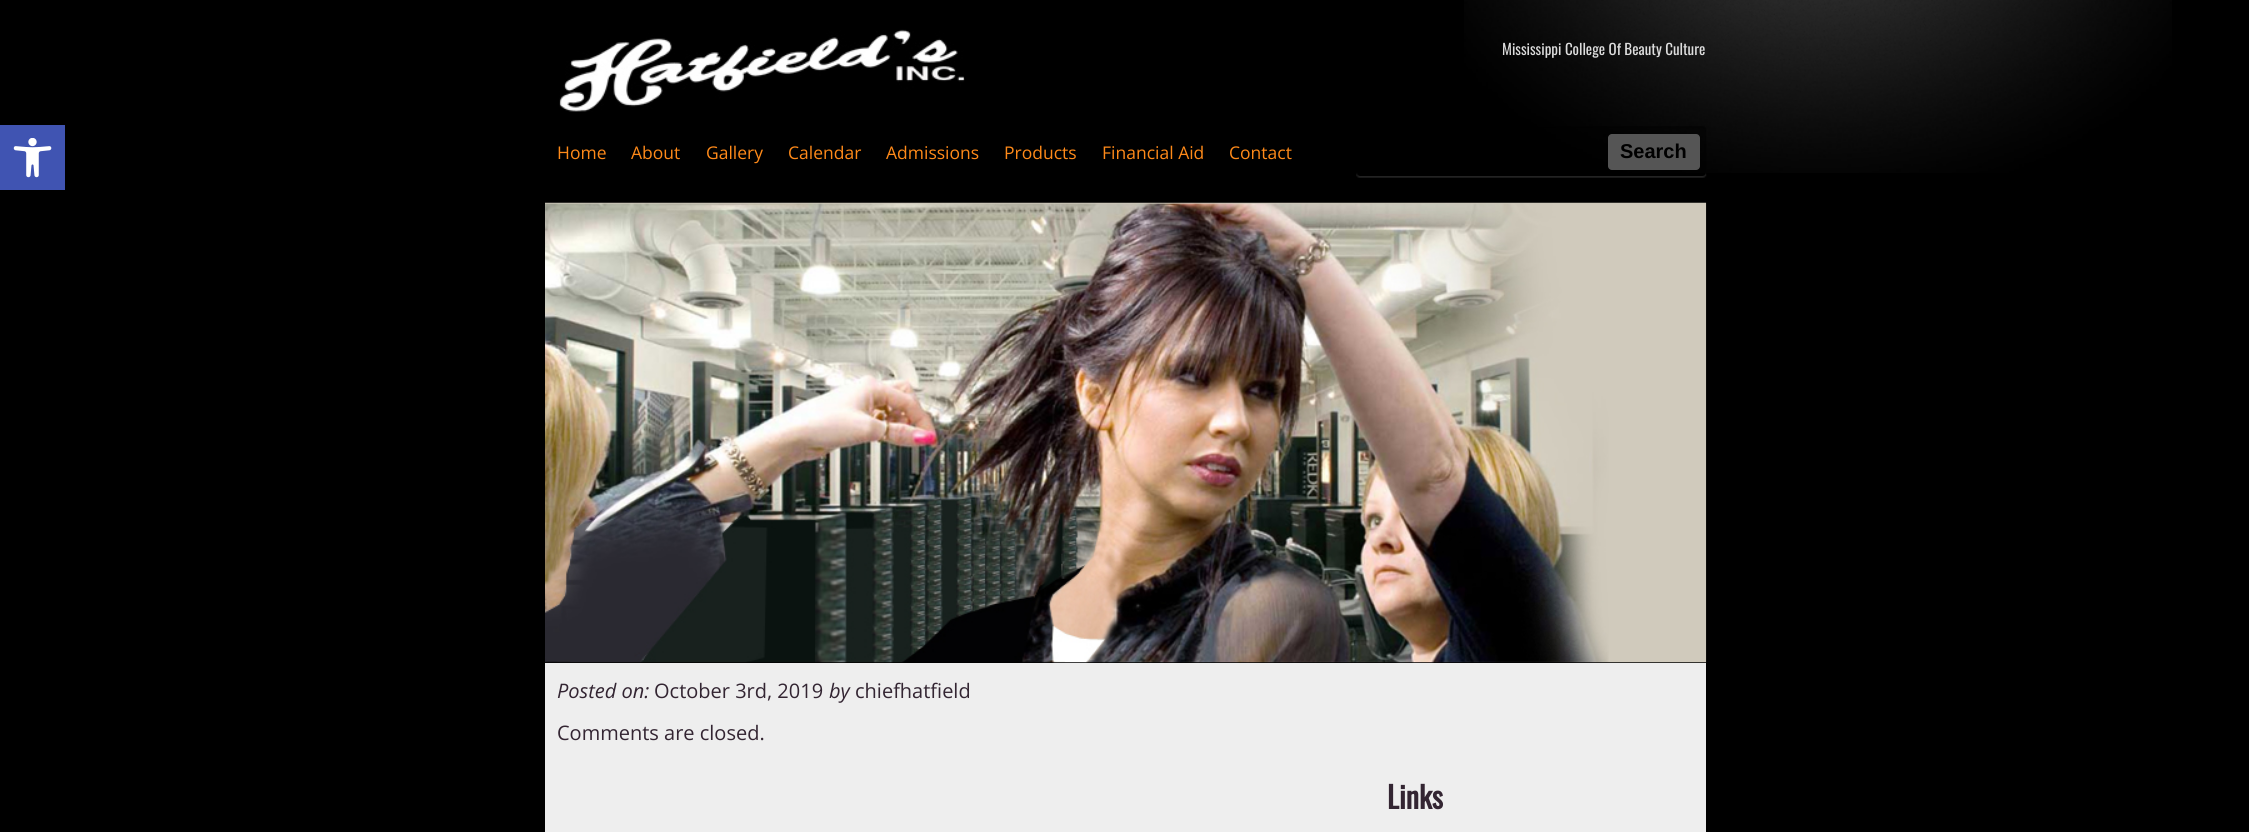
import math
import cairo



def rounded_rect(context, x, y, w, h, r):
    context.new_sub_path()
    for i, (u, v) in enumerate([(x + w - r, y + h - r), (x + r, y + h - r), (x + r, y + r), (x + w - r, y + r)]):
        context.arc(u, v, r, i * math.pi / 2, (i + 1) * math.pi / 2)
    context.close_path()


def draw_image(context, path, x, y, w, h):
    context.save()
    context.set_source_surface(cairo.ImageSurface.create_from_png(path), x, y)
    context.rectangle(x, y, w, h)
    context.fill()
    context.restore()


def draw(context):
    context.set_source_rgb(0, 0, 0)
    context.paint()
    draw_image(context, "images/1.png", 1464, 0, 708, 173)
    context.set_source_rgb(64 / 255, 84 / 255, 178 / 255)
    context.rectangle(0, 125, 65, 65)
    context.fill()
    draw_image(context, "images/2.png", 13, 138, 39, 40)
    draw_image(context, "images/3.png", 559, 29, 406, 83)
    draw_image(context, "images/4.png", 1356, 126, 351, 52)
    context.set_source_rgb(85 / 255, 85 / 255, 85 / 255)
    rounded_rect(context, 1608, 134, 92, 36, 4)
    context.fill()
    draw_image(context, "images/5.png", 545, 202, 1162, 461)
    context.set_source_rgb(238 / 255, 238 / 255, 238 / 255)
    context.rectangle(545, 663, 1161, 169)
    context.fill()
    context.select_font_face("Oswald")
    context.set_font_size(15)
    context.set_source_rgb(221 / 255, 221 / 255, 221 / 255)
    context.move_to(1502, 55)
    context.show_text("Mississippi College Of Beauty Culture")
    context.select_font_face("Open Sans")
    context.set_font_size(17.5)
    context.set_source_rgb(1, 138 / 255, 25 / 255)
    context.move_to(557, 159)
    context.show_text("Home")
    context.move_to(631, 159)
    context.show_text("About")
    context.move_to(706, 159)
    context.show_text("Gallery")
    context.move_to(788, 159)
    context.show_text("Calendar")
    context.move_to(886, 159)
    context.show_text("Admissions")
    context.move_to(1004, 159)
    context.show_text("Products")
    context.move_to(1102, 159)
    context.show_text("Financial Aid")
    context.move_to(1229, 159)
    context.show_text("Contact")
    context.select_font_face("Liberation Sans", cairo.FontSlant.NORMAL, cairo.FontWeight.BOLD)
    context.set_font_size(20)
    context.set_source_rgb(0, 0, 0)
    context.move_to(1620, 158)
    context.show_text("Search")
    context.select_font_face("Open Sans", cairo.FontSlant.ITALIC)
    context.set_source_rgb(51 / 255, 37 / 255, 50 / 255)
    context.move_to(557, 698)
    context.show_text("Posted on:")
    context.select_font_face("Open Sans")
    context.move_to(654, 698)
    context.show_text("October 3rd, 2019")
    context.select_font_face("Open Sans", cairo.FontSlant.ITALIC)
    context.move_to(829, 698)
    context.show_text("by")
    context.select_font_face("Open Sans")
    context.move_to(855, 698)
    context.show_text("chiefhatfield")
    context.move_to(557, 740)
    context.show_text("Comments are closed.")
    context.select_font_face("Oswald", cairo.FontSlant.NORMAL, cairo.FontWeight.BOLD)
    context.set_font_size(30)
    context.move_to(1387, 809)
    context.show_text("Links")


surface = cairo.ImageSurface(cairo.Format.RGB24, 2249, 832)
context = cairo.Context(surface)
options = cairo.FontOptions()
options.set_hint_metrics(cairo.HintMetrics.OFF)
options.set_hint_style(cairo.HintStyle.NONE)
context.set_font_options(options)
context.set_miter_limit(4)
draw(context)
surface.write_to_png("out.png")
